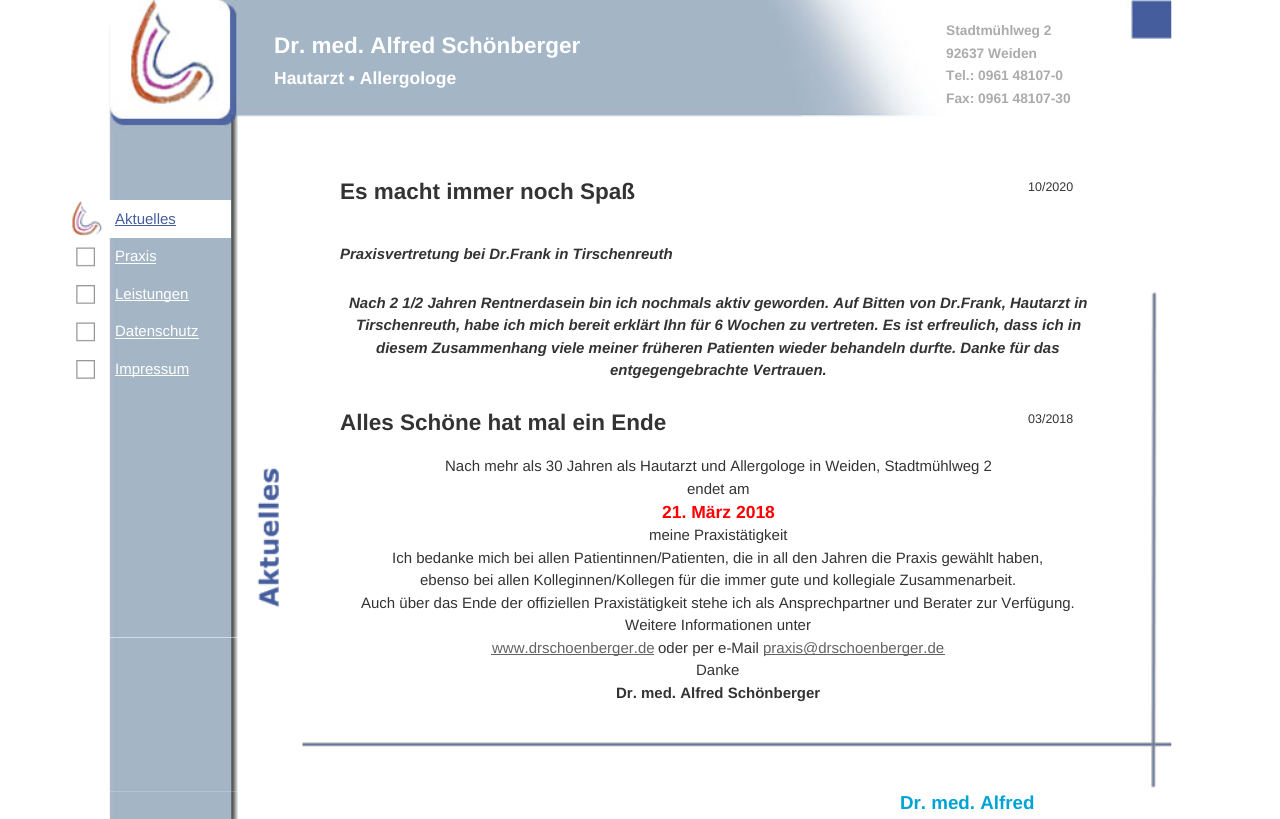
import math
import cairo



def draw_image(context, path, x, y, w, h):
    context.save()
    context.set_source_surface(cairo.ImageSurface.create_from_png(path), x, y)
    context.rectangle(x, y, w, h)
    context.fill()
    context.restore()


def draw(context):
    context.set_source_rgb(1, 1, 1)
    context.paint()
    draw_image(context, "images/1.png", 108, 0, 1064, 150)
    draw_image(context, "images/10.png", 109, 791, 129, 28)
    draw_image(context, "images/2.png", 109, 638, 129, 154)
    draw_image(context, "images/3.png", 109, 150, 129, 488)
    context.set_source_rgb(1, 1, 1)
    context.rectangle(109, 200, 122, 38)
    context.fill()
    draw_image(context, "images/4.png", 72, 201, 30, 35)
    context.set_source_rgb(69 / 255, 93 / 255, 156 / 255)
    context.rectangle(115, 225, 61, 1)
    context.fill()
    draw_image(context, "images/5.png", 76, 247, 19, 20)
    context.set_source_rgb(1, 1, 1)
    context.rectangle(115, 263, 41, 1)
    context.fill()
    draw_image(context, "images/6.png", 76, 285, 19, 19)
    context.rectangle(115, 300, 74, 1)
    context.fill()
    draw_image(context, "images/5.png", 76, 322, 19, 20)
    context.rectangle(115, 338, 84, 1)
    context.fill()
    draw_image(context, "images/7.png", 76, 360, 19, 19)
    context.rectangle(115, 375, 74, 1)
    context.fill()
    draw_image(context, "images/8.png", 302, 292, 870, 496)
    draw_image(context, "images/9.png", 257, 468, 22, 139)
    context.set_source_rgb(99 / 255, 99 / 255, 99 / 255)
    context.rectangle(491, 654, 163, 1)
    context.fill()
    context.rectangle(764, 654, 181, 1)
    context.fill()
    context.select_font_face("Liberation Sans", cairo.FontSlant.NORMAL, cairo.FontWeight.BOLD)
    context.set_font_size(22.5)
    context.set_source_rgb(1, 1, 1)
    context.move_to(274, 53)
    context.show_text("Dr. med. Alfred Schönberger")
    context.set_font_size(17.5)
    context.move_to(274, 84)
    context.show_text("Hautarzt • Allergologe")
    context.set_font_size(13.75)
    context.set_source_rgb(171 / 255, 171 / 255, 171 / 255)
    context.move_to(946, 35)
    context.show_text("Stadtmühlweg 2")
    context.move_to(946, 58)
    context.show_text("92637 Weiden")
    context.move_to(946, 80)
    context.show_text("Tel.: 0961 48107-0")
    context.move_to(946, 103)
    context.show_text("Fax: 0961 48107-30")
    context.select_font_face("Liberation Sans")
    context.set_font_size(15)
    context.set_source_rgb(69 / 255, 93 / 255, 156 / 255)
    context.move_to(115, 224)
    context.show_text("Aktuelles")
    context.set_source_rgb(1, 1, 1)
    context.move_to(115, 261)
    context.show_text("Praxis")
    context.move_to(115, 299)
    context.show_text("Leistungen")
    context.move_to(115, 336)
    context.show_text("Datenschutz")
    context.move_to(115, 374)
    context.show_text("Impressum")
    context.select_font_face("Liberation Sans", cairo.FontSlant.NORMAL, cairo.FontWeight.BOLD)
    context.set_font_size(22.5)
    context.set_source_rgb(51 / 255, 51 / 255, 51 / 255)
    context.move_to(340, 199)
    context.show_text("Es macht immer noch Spaß")
    context.select_font_face("Liberation Sans")
    context.set_font_size(12.5)
    context.move_to(1028, 191)
    context.show_text("10/2020")
    context.select_font_face("Liberation Sans", cairo.FontSlant.ITALIC, cairo.FontWeight.BOLD)
    context.set_font_size(15)
    context.move_to(340, 259)
    context.show_text("Praxisvertretung bei Dr.Frank in Tirschenreuth")
    context.move_to(349, 308)
    context.show_text("Nach 2 1/2 Jahren Rentnerdasein bin ich nochmals aktiv geworden. Auf Bitten von Dr.Frank, Hautarzt in")
    context.move_to(356, 330)
    context.show_text("Tirschenreuth, habe ich mich bereit erklärt Ihn für 6 Wochen zu vertreten. Es ist erfreulich, dass ich in")
    context.move_to(376, 353)
    context.show_text("diesem Zusammenhang viele meiner früheren Patienten wieder behandeln durfte. Danke für das")
    context.move_to(610, 375)
    context.show_text("entgegengebrachte Vertrauen.")
    context.select_font_face("Liberation Sans", cairo.FontSlant.NORMAL, cairo.FontWeight.BOLD)
    context.set_font_size(22.5)
    context.move_to(340, 430)
    context.show_text("Alles Schöne hat mal ein Ende")
    context.select_font_face("Liberation Sans")
    context.set_font_size(12.5)
    context.move_to(1028, 423)
    context.show_text("03/2018")
    context.set_font_size(15)
    context.move_to(445, 471)
    context.show_text("Nach mehr als 30 Jahren als Hautarzt und Allergologe in Weiden, Stadtmühlweg 2")
    context.move_to(687, 494)
    context.show_text("endet am")
    context.select_font_face("Liberation Sans", cairo.FontSlant.NORMAL, cairo.FontWeight.BOLD)
    context.set_font_size(17.5)
    context.set_source_rgb(1, 0, 0)
    context.move_to(662, 518)
    context.show_text("21. März 2018")
    context.select_font_face("Liberation Sans")
    context.set_font_size(15)
    context.set_source_rgb(51 / 255, 51 / 255, 51 / 255)
    context.move_to(649, 540)
    context.show_text("meine Praxistätigkeit")
    context.move_to(392, 563)
    context.show_text("Ich bedanke mich bei allen Patientinnen/Patienten, die in all den Jahren die Praxis gewählt haben,")
    context.move_to(420, 585)
    context.show_text("ebenso bei allen Kolleginnen/Kollegen für die immer gute und kollegiale Zusammenarbeit.")
    context.move_to(361, 608)
    context.show_text("Auch über das Ende der offiziellen Praxistätigkeit stehe ich als Ansprechpartner und Berater zur Verfügung.")
    context.move_to(625, 630)
    context.show_text("Weitere Informationen unter")
    context.set_source_rgb(99 / 255, 99 / 255, 99 / 255)
    context.move_to(492, 653)
    context.show_text("www.drschoenberger.de")
    context.set_source_rgb(51 / 255, 51 / 255, 51 / 255)
    context.move_to(658, 653)
    context.show_text("oder per e-Mail")
    context.set_source_rgb(99 / 255, 99 / 255, 99 / 255)
    context.move_to(763, 653)
    context.show_text("praxis@drschoenberger.de")
    context.set_source_rgb(51 / 255, 51 / 255, 51 / 255)
    context.move_to(696, 675)
    context.show_text("Danke")
    context.select_font_face("Liberation Sans", cairo.FontSlant.NORMAL, cairo.FontWeight.BOLD)
    context.move_to(616, 698)
    context.show_text("Dr. med. Alfred Schönberger")
    context.set_font_size(18.75)
    context.set_source_rgb(1 / 255, 163 / 255, 212 / 255)
    context.move_to(900, 809)
    context.show_text("Dr. med. Alfred")


surface = cairo.ImageSurface(cairo.Format.RGB24, 1280, 819)
context = cairo.Context(surface)
options = cairo.FontOptions()
options.set_hint_metrics(cairo.HintMetrics.OFF)
options.set_hint_style(cairo.HintStyle.NONE)
context.set_font_options(options)
context.set_miter_limit(4)
draw(context)
surface.write_to_png("out.png")
